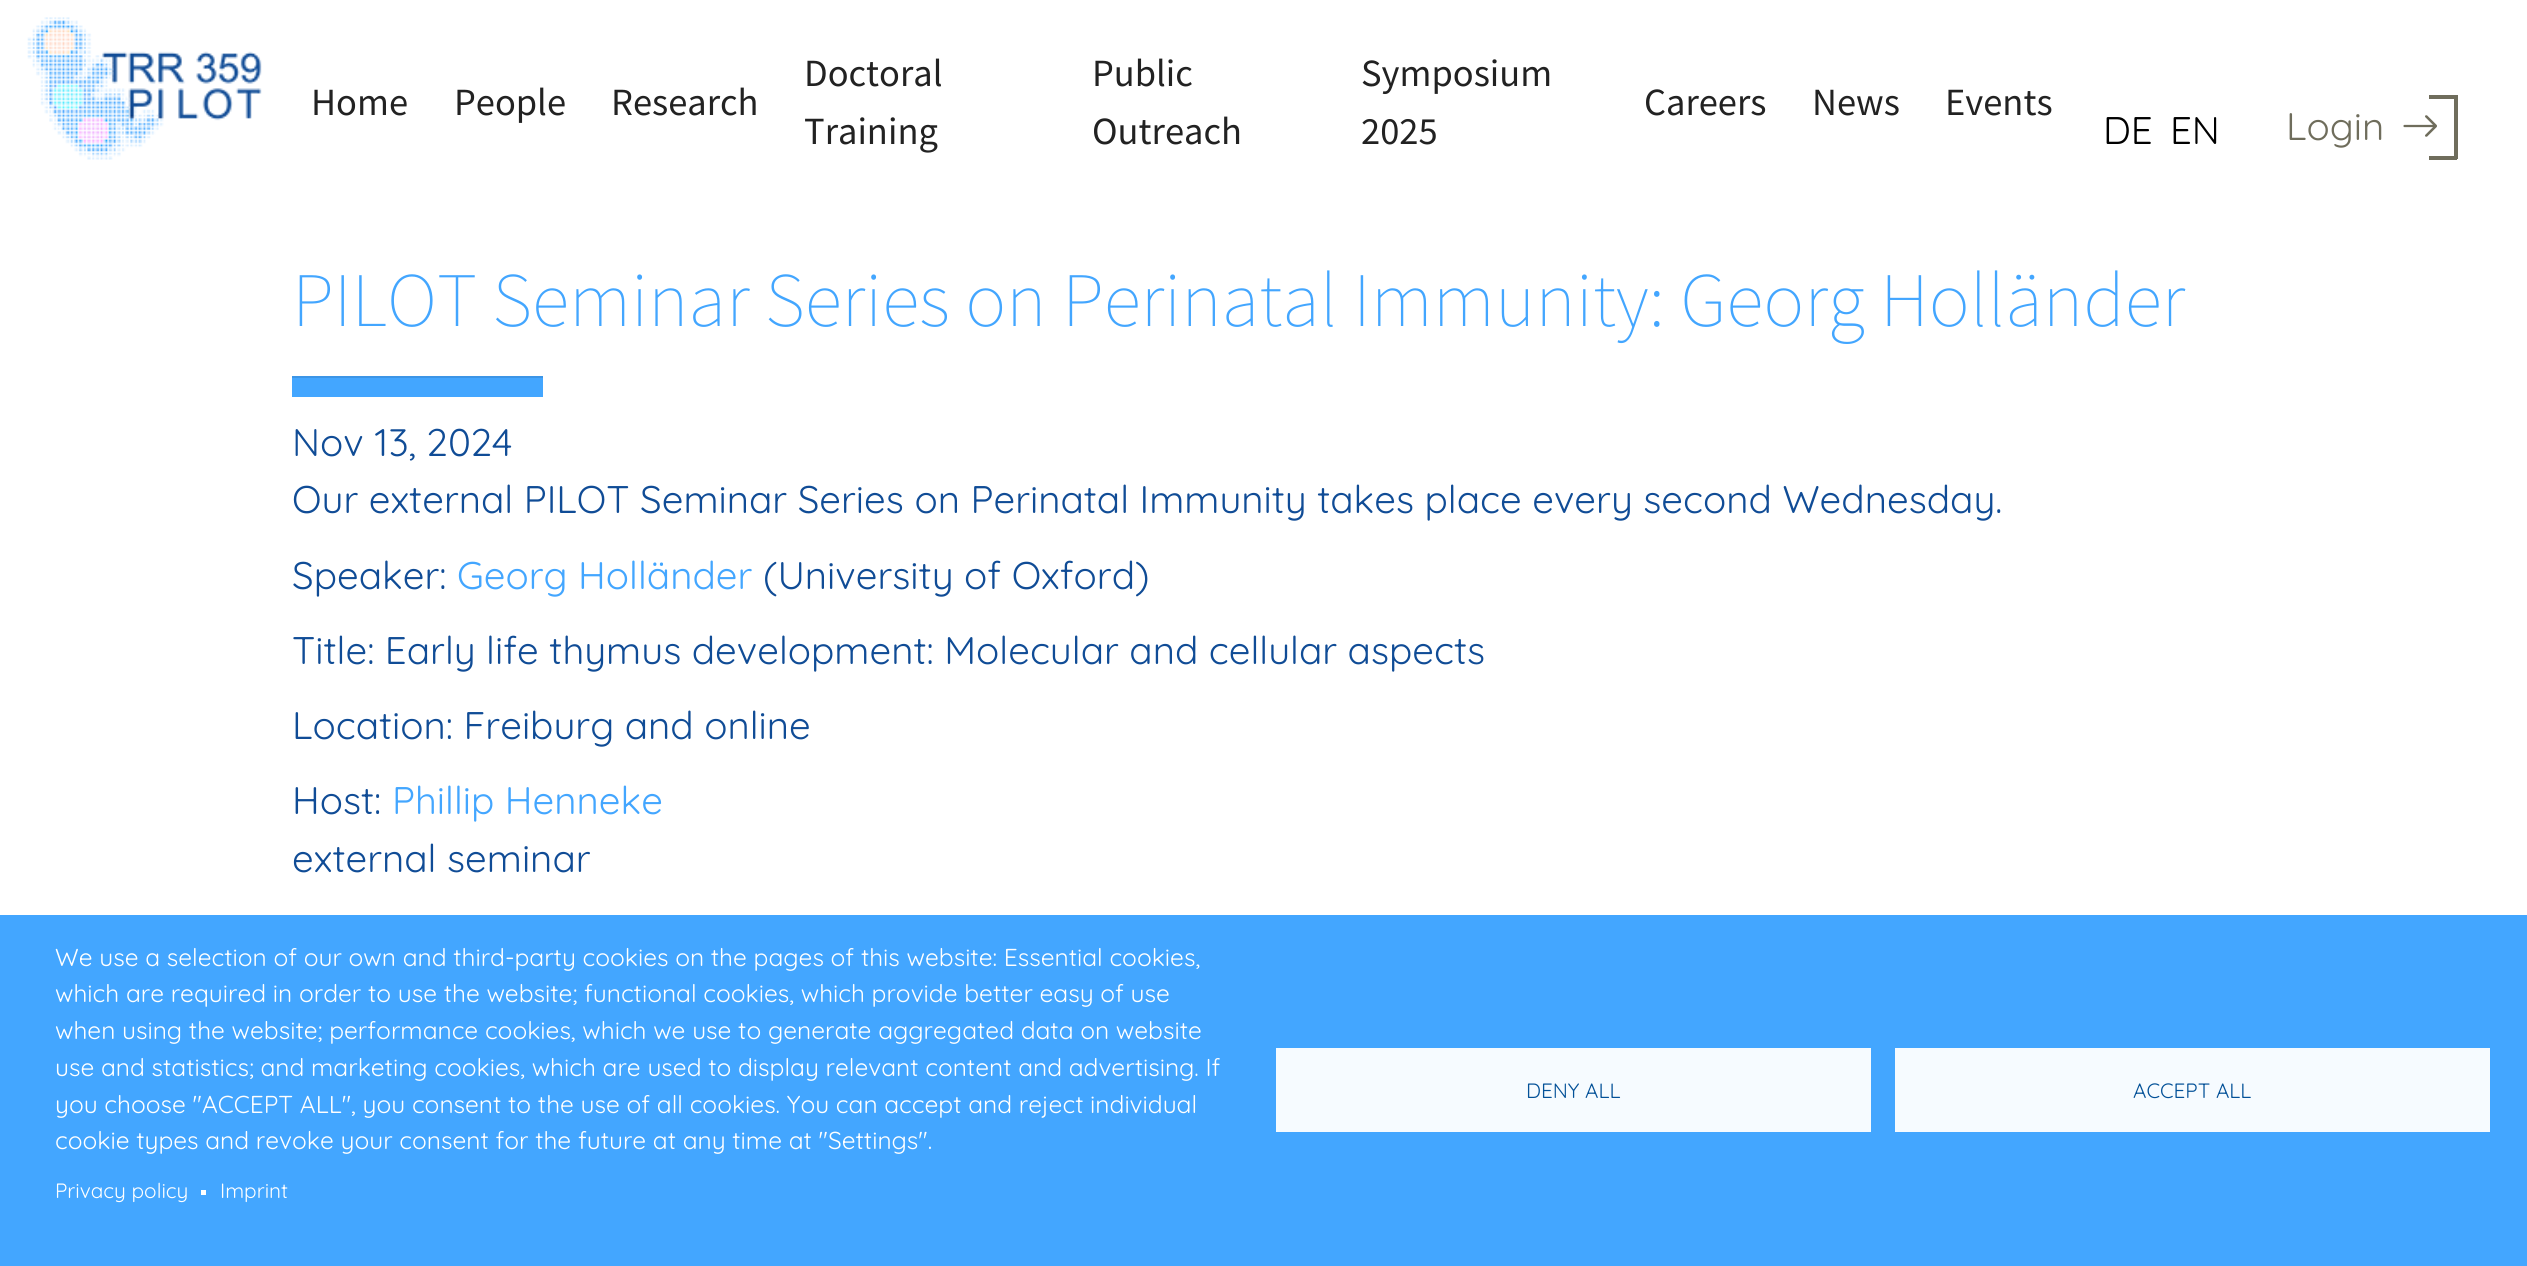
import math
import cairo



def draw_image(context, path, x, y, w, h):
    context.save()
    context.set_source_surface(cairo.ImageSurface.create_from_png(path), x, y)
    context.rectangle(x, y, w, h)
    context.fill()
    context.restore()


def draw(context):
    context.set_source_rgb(1, 1, 1)
    context.paint()
    draw_image(context, "images/1.png", 27, 17, 235, 143)
    context.set_source_rgb(111 / 255, 109 / 255, 92 / 255)
    context.rectangle(2429, 95, 28, 4)
    context.fill()
    context.rectangle(2454, 95, 4, 64)
    context.fill()
    context.rectangle(2429, 156, 28, 4)
    context.fill()
    draw_image(context, "images/2.png", 2403, 115, 34, 22)
    context.set_source_rgb(67 / 255, 166 / 255, 1)
    context.rectangle(292, 378, 251, 19)
    context.fill()
    context.set_source_rgb(60 / 255, 149 / 255, 230 / 255)
    context.rectangle(292, 376, 251, 2)
    context.fill()
    context.set_source_rgb(67 / 255, 166 / 255, 1)
    context.rectangle(0, 915, 2527, 351)
    context.fill()
    context.set_source_rgb(1, 1, 1)
    context.rectangle(201, 1190, 5, 5)
    context.fill()
    context.set_source_rgb(246 / 255, 251 / 255, 1)
    context.rectangle(1276, 1048, 595, 84)
    context.fill()
    context.rectangle(1895, 1048, 595, 84)
    context.fill()
    context.select_font_face("Source Sans Pro")
    context.set_font_size(38.5)
    context.set_source_rgb(34 / 255, 34 / 255, 34 / 255)
    context.move_to(311, 115)
    context.show_text("Home")
    context.move_to(454, 115)
    context.show_text("People")
    context.move_to(611, 115)
    context.show_text("Research")
    context.move_to(804, 86)
    context.show_text("Doctoral")
    context.move_to(804, 144)
    context.show_text("Training")
    context.move_to(1092, 86)
    context.show_text("Public")
    context.move_to(1092, 144)
    context.show_text("Outreach")
    context.move_to(1361, 86)
    context.show_text("Symposium")
    context.move_to(1361, 144)
    context.show_text("2025")
    context.move_to(1644, 115)
    context.show_text("Careers")
    context.move_to(1812, 115)
    context.show_text("News")
    context.move_to(1945, 115)
    context.show_text("Events")
    context.select_font_face("Quicksand Light")
    context.set_source_rgb(0, 0, 0)
    context.move_to(2103, 144)
    context.show_text("DE")
    context.move_to(2170, 144)
    context.show_text("EN")
    context.set_source_rgb(111 / 255, 109 / 255, 92 / 255)
    context.move_to(2286, 140)
    context.show_text("Login")
    context.select_font_face("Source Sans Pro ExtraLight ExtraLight")
    context.set_font_size(77)
    context.set_source_rgb(67 / 255, 166 / 255, 1)
    context.move_to(292, 326)
    context.show_text("PILOT Seminar Series on Perinatal Immunity: Georg Holländer")
    context.select_font_face("Quicksand Light")
    context.set_font_size(38.5)
    context.set_source_rgb(16 / 255, 76 / 255, 150 / 255)
    context.move_to(292, 456)
    context.show_text("Nov 13, 2024")
    context.move_to(292, 513)
    context.show_text("Our external PILOT Seminar Series on Perinatal Immunity takes place every second Wednesday.")
    context.move_to(292, 589)
    context.show_text("Speaker:")
    context.set_source_rgb(67 / 255, 166 / 255, 1)
    context.move_to(457, 589)
    context.show_text("Georg Holländer")
    context.set_source_rgb(16 / 255, 76 / 255, 150 / 255)
    context.move_to(763, 589)
    context.show_text("(University of Oxford)")
    context.move_to(292, 664)
    context.show_text("Title: Early life thymus development: Molecular and cellular aspects")
    context.move_to(292, 739)
    context.show_text("Location: Freiburg and online")
    context.move_to(292, 814)
    context.show_text("Host:")
    context.set_source_rgb(67 / 255, 166 / 255, 1)
    context.move_to(392, 814)
    context.show_text("Phillip Henneke")
    context.set_source_rgb(16 / 255, 76 / 255, 150 / 255)
    context.move_to(292, 872)
    context.show_text("external seminar")
    context.set_font_size(24.5)
    context.set_source_rgb(1, 1, 1)
    context.move_to(55, 966)
    context.show_text("We use a selection of our own and third-party cookies on the pages of this website: Essential cookies,")
    context.move_to(55, 1002)
    context.show_text("which are required in order to use the website; functional cookies, which provide better easy of use")
    context.move_to(55, 1039)
    context.show_text("when using the website; performance cookies, which we use to generate aggregated data on website")
    context.move_to(55, 1076)
    context.show_text("use and statistics; and marketing cookies, which are used to display relevant content and advertising. If")
    context.move_to(55, 1113)
    context.show_text("you choose \"ACCEPT ALL\", you consent to the use of all cookies. You can accept and reject individual")
    context.move_to(55, 1149)
    context.show_text("cookie types and revoke your consent for the future at any time at \"Settings\".")
    context.set_font_size(20.75)
    context.move_to(55, 1198)
    context.show_text("Privacy policy")
    context.move_to(220, 1198)
    context.show_text("Imprint")
    context.set_source_rgb(3 / 255, 81 / 255, 152 / 255)
    context.move_to(1526, 1098)
    context.show_text("DENY ALL")
    context.move_to(2133, 1098)
    context.show_text("ACCEPT ALL")


surface = cairo.ImageSurface(cairo.Format.RGB24, 2527, 1266)
context = cairo.Context(surface)
options = cairo.FontOptions()
options.set_hint_metrics(cairo.HintMetrics.OFF)
options.set_hint_style(cairo.HintStyle.NONE)
context.set_font_options(options)
context.set_miter_limit(4)
draw(context)
surface.write_to_png("out.png")
